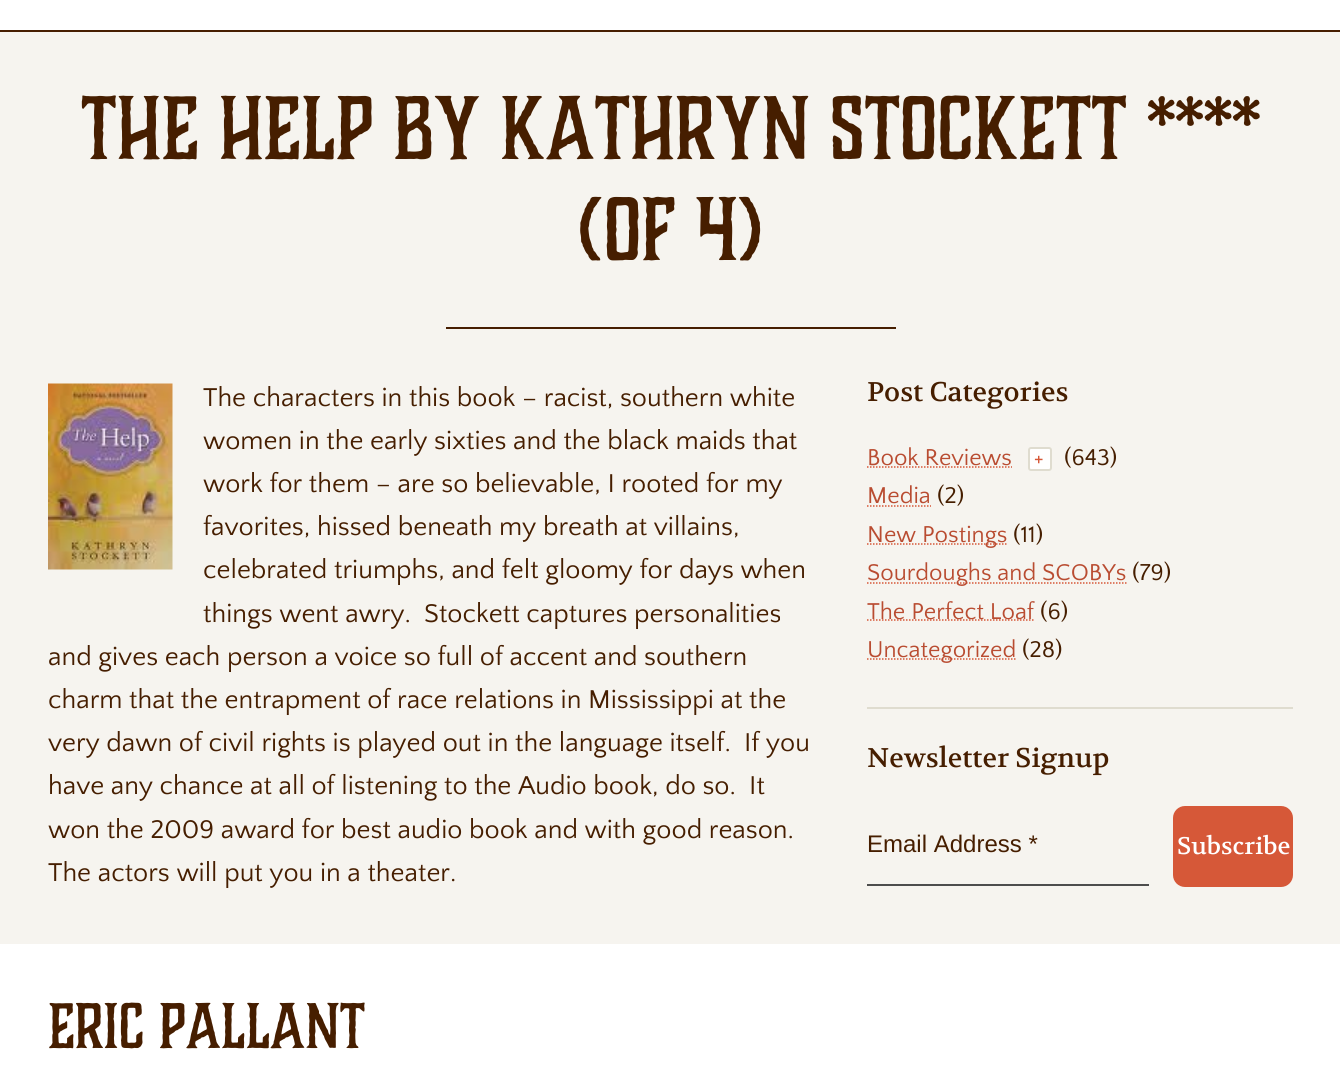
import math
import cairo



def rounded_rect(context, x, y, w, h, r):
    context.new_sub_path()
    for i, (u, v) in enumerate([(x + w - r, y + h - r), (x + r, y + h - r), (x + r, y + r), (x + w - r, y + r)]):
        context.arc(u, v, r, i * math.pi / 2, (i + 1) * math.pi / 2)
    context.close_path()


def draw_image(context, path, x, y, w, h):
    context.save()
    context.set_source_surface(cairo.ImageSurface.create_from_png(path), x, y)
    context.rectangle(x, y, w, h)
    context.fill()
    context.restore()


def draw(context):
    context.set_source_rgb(246 / 255, 244 / 255, 239 / 255)
    context.paint()
    context.set_source_rgb(1, 1, 1)
    context.rectangle(0, 0, 1340, 30)
    context.fill()
    context.set_source_rgb(70 / 255, 30 / 255, 0)
    context.rectangle(0, 30, 1340, 2)
    context.fill()
    context.rectangle(446, 327, 450, 2)
    context.fill()
    draw_image(context, "images/1.png", 48, 383, 125, 187)
    context.set_source_rgb(223 / 255, 220 / 255, 207 / 255)
    context.rectangle(867, 707, 426, 2)
    context.fill()
    context.new_path()
    context.move_to(867, 467)
    context.line_to(1012, 467)
    context.set_source_rgb(214 / 255, 88 / 255, 56 / 255)
    context.set_line_width(1.5)
    context.set_dash([1.5, 1.5])
    context.stroke()
    context.set_source_rgb(1, 1, 1)
    rounded_rect(context, 1029, 448, 22, 22, 2)
    context.fill_preserve()
    context.set_source_rgb(223 / 255, 220 / 255, 207 / 255)
    context.set_line_width(2)
    context.set_dash([])
    context.stroke()
    context.new_path()
    context.move_to(867, 506)
    context.line_to(931, 506)
    context.set_source_rgb(214 / 255, 88 / 255, 56 / 255)
    context.set_line_width(1.5)
    context.set_dash([1.5, 1.5])
    context.stroke()
    context.new_path()
    context.move_to(867, 544)
    context.line_to(1007.5, 544)
    context.stroke()
    context.new_path()
    context.move_to(867, 583)
    context.line_to(1126.5, 583)
    context.stroke()
    context.new_path()
    context.move_to(867, 620)
    context.line_to(1034, 620)
    context.stroke()
    context.new_path()
    context.move_to(867, 659)
    context.line_to(1016.5, 659)
    context.stroke()
    context.set_source_rgb(77 / 255, 77 / 255, 77 / 255)
    context.rectangle(867, 884, 282, 2)
    context.fill()
    context.set_source_rgb(214 / 255, 88 / 255, 56 / 255)
    rounded_rect(context, 1173, 806, 120, 81, 12)
    context.fill()
    context.set_source_rgb(1, 1, 1)
    context.rectangle(0, 944, 1340, 122)
    context.fill()
    context.select_font_face("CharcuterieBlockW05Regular")
    context.set_font_size(84)
    context.set_source_rgb(70 / 255, 30 / 255, 0)
    context.move_to(81, 159)
    context.show_text("The Help by Kathryn Stockett ****")
    context.move_to(579, 260)
    context.show_text("(of 4)")
    context.select_font_face("Quattrocento Sans")
    context.set_font_size(27)
    context.move_to(203, 406)
    context.show_text("The characters in this book – racist, southern white")
    context.move_to(203, 449)
    context.show_text("women in the early sixties and the black maids that")
    context.move_to(203, 492)
    context.show_text("work for them – are so believable, I rooted for my")
    context.move_to(203, 535)
    context.show_text("favorites, hissed beneath my breath at villains,")
    context.move_to(203, 578)
    context.show_text("celebrated triumphs, and felt gloomy for days when")
    context.move_to(203, 622)
    context.show_text("things went awry.  Stockett captures personalities")
    context.move_to(48, 665)
    context.show_text("and gives each person a voice so full of accent and southern")
    context.move_to(48, 708)
    context.show_text("charm that the entrapment of race relations in Mississippi at the")
    context.move_to(48, 751)
    context.show_text("very dawn of civil rights is played out in the language itself.  If you")
    context.move_to(48, 794)
    context.show_text("have any chance at all of listening to the Audio book, do so.  It")
    context.move_to(48, 838)
    context.show_text("won the 2009 award for best audio book and with good reason.")
    context.move_to(48, 881)
    context.show_text("The actors will put you in a theater.")
    context.select_font_face("Volkhov")
    context.move_to(867, 401)
    context.show_text("Post Categories")
    context.select_font_face("Quattrocento Sans")
    context.set_font_size(24)
    context.set_source_rgb(185 / 255, 76 / 255, 49 / 255)
    context.move_to(867, 465)
    context.show_text("Book Reviews")
    context.select_font_face("Quattrocento Sans", cairo.FontSlant.NORMAL, cairo.FontWeight.BOLD)
    context.set_font_size(18)
    context.set_source_rgb(214 / 255, 88 / 255, 56 / 255)
    context.move_to(1034, 464)
    context.show_text("+")
    context.select_font_face("Quattrocento Sans")
    context.set_font_size(24)
    context.set_source_rgb(70 / 255, 30 / 255, 0)
    context.move_to(1064, 465)
    context.show_text("(643)")
    context.set_source_rgb(185 / 255, 76 / 255, 49 / 255)
    context.move_to(867, 503)
    context.show_text("Media")
    context.set_source_rgb(70 / 255, 30 / 255, 0)
    context.move_to(937, 503)
    context.show_text("(2)")
    context.set_source_rgb(185 / 255, 76 / 255, 49 / 255)
    context.move_to(867, 542)
    context.show_text("New Postings")
    context.set_source_rgb(70 / 255, 30 / 255, 0)
    context.move_to(1013, 542)
    context.show_text("(11)")
    context.set_source_rgb(185 / 255, 76 / 255, 49 / 255)
    context.move_to(867, 580)
    context.show_text("Sourdoughs and SCOBYs")
    context.set_source_rgb(70 / 255, 30 / 255, 0)
    context.move_to(1132, 580)
    context.show_text("(79)")
    context.set_source_rgb(185 / 255, 76 / 255, 49 / 255)
    context.move_to(867, 619)
    context.show_text("The Perfect Loaf")
    context.set_source_rgb(70 / 255, 30 / 255, 0)
    context.move_to(1040, 619)
    context.show_text("(6)")
    context.set_source_rgb(185 / 255, 76 / 255, 49 / 255)
    context.move_to(867, 657)
    context.show_text("Uncategorized")
    context.set_source_rgb(70 / 255, 30 / 255, 0)
    context.move_to(1022, 657)
    context.show_text("(28)")
    context.select_font_face("Volkhov")
    context.set_font_size(27)
    context.move_to(867, 767)
    context.show_text("Newsletter Signup")
    context.select_font_face("Liberation Sans")
    context.set_font_size(24)
    context.move_to(867, 852)
    context.show_text("Email Address *")
    context.select_font_face("Volkhov")
    context.set_source_rgb(1, 1, 1)
    context.move_to(1177, 854)
    context.show_text("Subscribe")
    context.select_font_face("CharcuterieBlockW05Regular")
    context.set_font_size(60)
    context.set_source_rgb(70 / 255, 30 / 255, 0)
    context.move_to(48, 1048)
    context.show_text("Eric Pallant")


surface = cairo.ImageSurface(cairo.Format.RGB24, 1340, 1066)
context = cairo.Context(surface)
options = cairo.FontOptions()
options.set_hint_metrics(cairo.HintMetrics.OFF)
options.set_hint_style(cairo.HintStyle.NONE)
context.set_font_options(options)
context.set_miter_limit(4)
draw(context)
surface.write_to_png("out.png")
